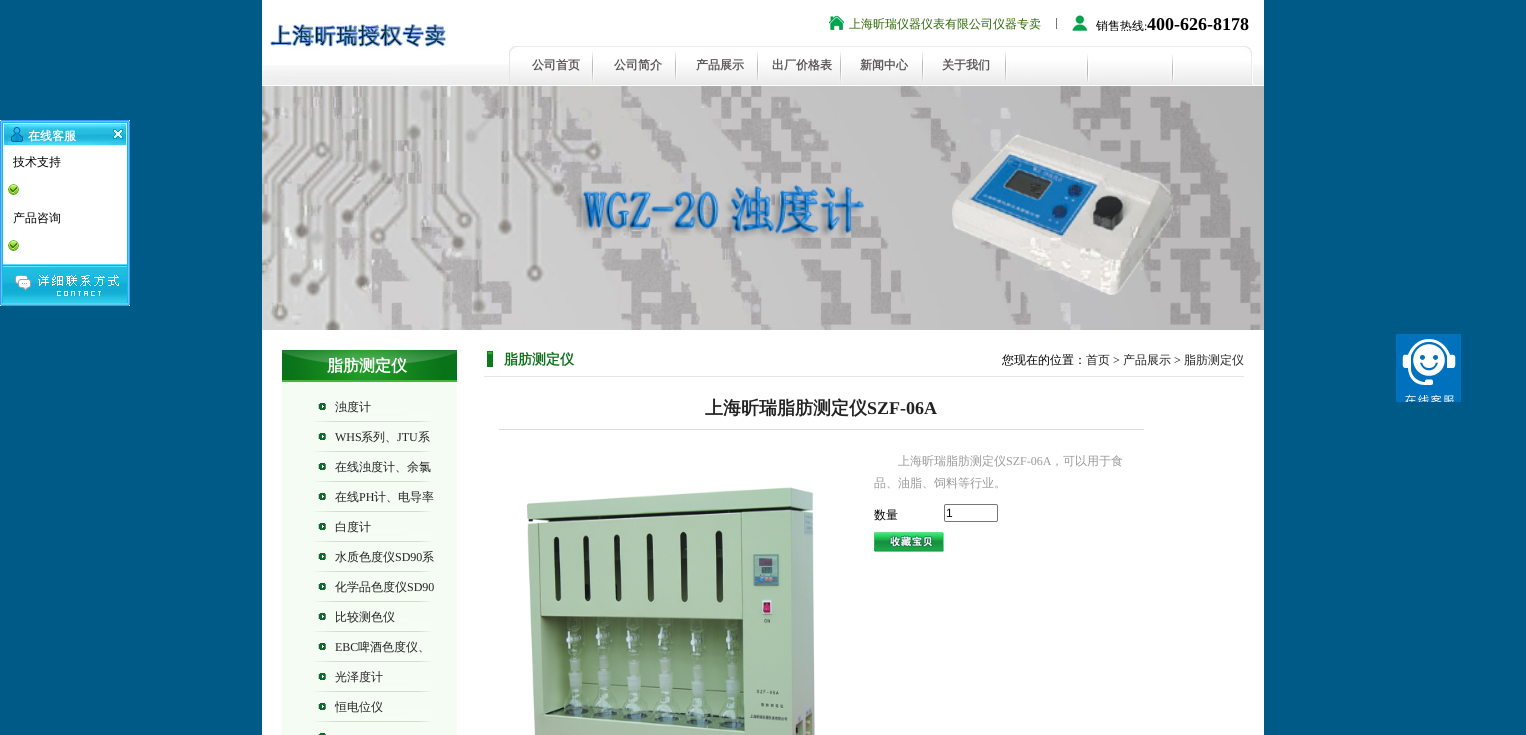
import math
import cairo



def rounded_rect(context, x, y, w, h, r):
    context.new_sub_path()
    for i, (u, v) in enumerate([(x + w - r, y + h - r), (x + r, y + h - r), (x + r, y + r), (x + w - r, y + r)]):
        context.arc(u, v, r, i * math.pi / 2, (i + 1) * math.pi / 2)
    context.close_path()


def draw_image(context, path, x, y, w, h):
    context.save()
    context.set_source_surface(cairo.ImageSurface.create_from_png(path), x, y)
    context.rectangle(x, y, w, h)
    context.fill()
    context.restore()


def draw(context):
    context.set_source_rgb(0, 90 / 255, 135 / 255)
    context.paint()
    context.set_source_rgb(1, 1, 1)
    context.rectangle(262, 0, 1002, 64)
    context.fill()
    draw_image(context, "images/1.png", 262, 64, 1002, 22)
    draw_image(context, "images/2.png", 262, 21, 184, 44)
    draw_image(context, "images/3.png", 509, 46, 745, 39)
    draw_image(context, "images/4.png", 829, 15, 15, 15)
    draw_image(context, "images/5.png", 1056, 15, 32, 16)
    draw_image(context, "images/6.png", 262, 86, 1002, 244)
    draw_image(context, "images/7.png", 0, 120, 130, 26)
    draw_image(context, "images/8.png", 113, 129, 10, 10)
    draw_image(context, "images/9.png", 0, 146, 130, 3)
    draw_image(context, "images/10.png", 0, 149, 130, 112)
    draw_image(context, "images/11.png", 8, 184, 11, 11)
    draw_image(context, "images/11.png", 8, 240, 11, 11)
    draw_image(context, "images/9.png", 0, 261, 130, 3)
    draw_image(context, "images/12.png", 0, 264, 130, 42)
    context.rectangle(262, 330, 1002, 405)
    context.fill()
    context.set_source_rgb(245 / 255, 252 / 255, 244 / 255)
    context.rectangle(282, 382, 175, 353)
    context.fill()
    draw_image(context, "images/13.png", 282, 350, 175, 32)
    draw_image(context, "images/14.png", 314, 400, 117, 22)
    draw_image(context, "images/14.png", 314, 430, 117, 22)
    draw_image(context, "images/14.png", 314, 460, 117, 22)
    draw_image(context, "images/14.png", 314, 490, 117, 22)
    draw_image(context, "images/14.png", 314, 520, 117, 22)
    draw_image(context, "images/14.png", 314, 550, 117, 22)
    draw_image(context, "images/14.png", 314, 580, 117, 22)
    draw_image(context, "images/14.png", 314, 610, 117, 22)
    draw_image(context, "images/14.png", 314, 640, 117, 22)
    draw_image(context, "images/14.png", 314, 670, 117, 22)
    draw_image(context, "images/14.png", 314, 700, 117, 22)
    draw_image(context, "images/15.png", 314, 730, 16, 5)
    draw_image(context, "images/16.png", 484, 350, 760, 27)
    context.set_source_rgb(221 / 255, 221 / 255, 221 / 255)
    context.rectangle(499, 429, 645, 1)
    context.fill()
    draw_image(context, "images/17.png", 526, 487, 289, 248)
    rounded_rect(context, 944.5, 504.5, 53, 17, 1.5)
    context.set_source_rgb(118 / 255, 118 / 255, 118 / 255)
    context.set_line_width(1)
    context.stroke()
    draw_image(context, "images/18.png", 874, 532, 70, 20)
    draw_image(context, "images/19.png", 1396, 334, 65, 68)
    context.select_font_face("WenQuanYi Zen Hei", cairo.FontSlant.NORMAL, cairo.FontWeight.BOLD)
    context.set_font_size(12)
    context.set_source_rgb(90 / 255, 86 / 255, 87 / 255)
    context.move_to(532, 69)
    context.show_text("公司首页")
    context.move_to(614, 69)
    context.show_text("公司简介")
    context.move_to(696, 69)
    context.show_text("产品展示")
    context.move_to(772, 69)
    context.show_text("出厂价格表")
    context.move_to(860, 69)
    context.show_text("新闻中心")
    context.move_to(942, 69)
    context.show_text("关于我们")
    context.select_font_face("WenQuanYi Zen Hei Medium")
    context.set_source_rgb(42 / 255, 103 / 255, 1 / 255)
    context.move_to(849, 28)
    context.show_text("上海昕瑞仪器仪表有限公司仪器专卖")
    context.save()
    context.rectangle(1056, 15, 208, 16)
    context.clip()
    context.set_source_rgb(0, 0, 0)
    context.move_to(1096, 30)
    context.show_text("销售热线")
    context.restore()
    context.select_font_face("Liberation Serif")
    context.set_source_rgb(0, 0, 0)
    context.move_to(1144, 30)
    context.show_text(":")
    context.select_font_face("Liberation Serif", cairo.FontSlant.NORMAL, cairo.FontWeight.BOLD)
    context.set_font_size(18)
    context.move_to(1147, 30)
    context.show_text("400-626-8178")
    context.select_font_face("WenQuanYi Zen Hei", cairo.FontSlant.NORMAL, cairo.FontWeight.BOLD)
    context.set_font_size(12)
    context.set_source_rgb(1, 1, 1)
    context.move_to(28, 140)
    context.show_text("在线客服")
    context.select_font_face("WenQuanYi Zen Hei Medium")
    context.set_source_rgb(0, 0, 0)
    context.move_to(13, 166)
    context.show_text("技术支持")
    context.move_to(13, 222)
    context.show_text("产品咨询")
    context.select_font_face("WenQuanYi Zen Hei", cairo.FontSlant.NORMAL, cairo.FontWeight.BOLD)
    context.set_font_size(16)
    context.set_source_rgb(1, 1, 1)
    context.move_to(327, 371)
    context.show_text("脂肪测定仪")
    context.select_font_face("WenQuanYi Zen Hei Medium")
    context.set_font_size(12)
    context.set_source_rgb(34 / 255, 34 / 255, 34 / 255)
    context.move_to(335, 411)
    context.show_text("浊度计")
    context.select_font_face("Liberation Serif")
    context.move_to(335, 441)
    context.show_text("WHS")
    context.select_font_face("WenQuanYi Zen Hei Medium")
    context.move_to(361, 441)
    context.show_text("系列、")
    context.select_font_face("Liberation Serif")
    context.move_to(397, 441)
    context.show_text("JTU")
    context.select_font_face("WenQuanYi Zen Hei Medium")
    context.move_to(418, 441)
    context.show_text("系")
    context.move_to(335, 471)
    context.show_text("在线浊度计、余氯")
    context.move_to(335, 501)
    context.show_text("在线")
    context.select_font_face("Liberation Serif")
    context.move_to(359, 501)
    context.show_text("PH")
    context.select_font_face("WenQuanYi Zen Hei Medium")
    context.move_to(374, 501)
    context.show_text("计、电导率")
    context.move_to(335, 531)
    context.show_text("白度计")
    context.move_to(335, 561)
    context.show_text("水质色度仪")
    context.select_font_face("Liberation Serif")
    context.move_to(395, 561)
    context.show_text("SD90")
    context.select_font_face("WenQuanYi Zen Hei Medium")
    context.move_to(422, 561)
    context.show_text("系")
    context.move_to(335, 591)
    context.show_text("化学品色度仪")
    context.select_font_face("Liberation Serif")
    context.move_to(407, 591)
    context.show_text("SD90")
    context.select_font_face("WenQuanYi Zen Hei Medium")
    context.move_to(335, 621)
    context.show_text("比较测色仪")
    context.select_font_face("Liberation Serif")
    context.move_to(335, 651)
    context.show_text("EBC")
    context.select_font_face("WenQuanYi Zen Hei Medium")
    context.move_to(358, 651)
    context.show_text("啤酒色度仪、")
    context.move_to(335, 681)
    context.show_text("光泽度计")
    context.move_to(335, 711)
    context.show_text("恒电位仪")
    context.select_font_face("WenQuanYi Zen Hei", cairo.FontSlant.NORMAL, cairo.FontWeight.BOLD)
    context.set_font_size(14)
    context.set_source_rgb(9 / 255, 115 / 255, 26 / 255)
    context.move_to(504, 364)
    context.show_text("脂肪测定仪")
    context.select_font_face("WenQuanYi Zen Hei Medium")
    context.set_font_size(12)
    context.set_source_rgb(0, 0, 0)
    context.move_to(1002, 364)
    context.show_text("您现在的位置：")
    context.set_source_rgb(34 / 255, 34 / 255, 34 / 255)
    context.move_to(1086, 364)
    context.show_text("首页")
    context.select_font_face("Liberation Serif")
    context.set_source_rgb(0, 0, 0)
    context.move_to(1113, 364)
    context.show_text(">")
    context.select_font_face("WenQuanYi Zen Hei Medium")
    context.set_source_rgb(34 / 255, 34 / 255, 34 / 255)
    context.move_to(1123, 364)
    context.show_text("产品展示")
    context.select_font_face("Liberation Serif")
    context.set_source_rgb(0, 0, 0)
    context.move_to(1174, 364)
    context.show_text(">")
    context.select_font_face("WenQuanYi Zen Hei Medium")
    context.set_source_rgb(34 / 255, 34 / 255, 34 / 255)
    context.move_to(1184, 364)
    context.show_text("脂肪测定仪")
    context.select_font_face("WenQuanYi Zen Hei", cairo.FontSlant.NORMAL, cairo.FontWeight.BOLD)
    context.set_font_size(18)
    context.move_to(705, 414)
    context.show_text("上海昕瑞脂肪测定仪")
    context.select_font_face("Liberation Serif", cairo.FontSlant.NORMAL, cairo.FontWeight.BOLD)
    context.move_to(867, 414)
    context.show_text("SZF-06A")
    context.select_font_face("WenQuanYi Zen Hei Medium")
    context.set_font_size(12)
    context.set_source_rgb(153 / 255, 153 / 255, 153 / 255)
    context.move_to(898, 465)
    context.show_text("上海昕瑞脂肪测定仪")
    context.select_font_face("Liberation Serif")
    context.move_to(1006, 465)
    context.show_text("SZF-06A")
    context.select_font_face("WenQuanYi Zen Hei Medium")
    context.move_to(1051, 465)
    context.show_text("，可以用于食")
    context.move_to(874, 487)
    context.show_text("品、油脂、饲料等行业。")
    context.set_source_rgb(0, 0, 0)
    context.move_to(874, 519)
    context.show_text("数量")
    context.select_font_face("Liberation Sans")
    context.move_to(946, 517)
    context.show_text("1")


surface = cairo.ImageSurface(cairo.Format.RGB24, 1526, 735)
context = cairo.Context(surface)
options = cairo.FontOptions()
options.set_hint_metrics(cairo.HintMetrics.OFF)
options.set_hint_style(cairo.HintStyle.NONE)
context.set_font_options(options)
context.set_miter_limit(4)
draw(context)
surface.write_to_png("out.png")
